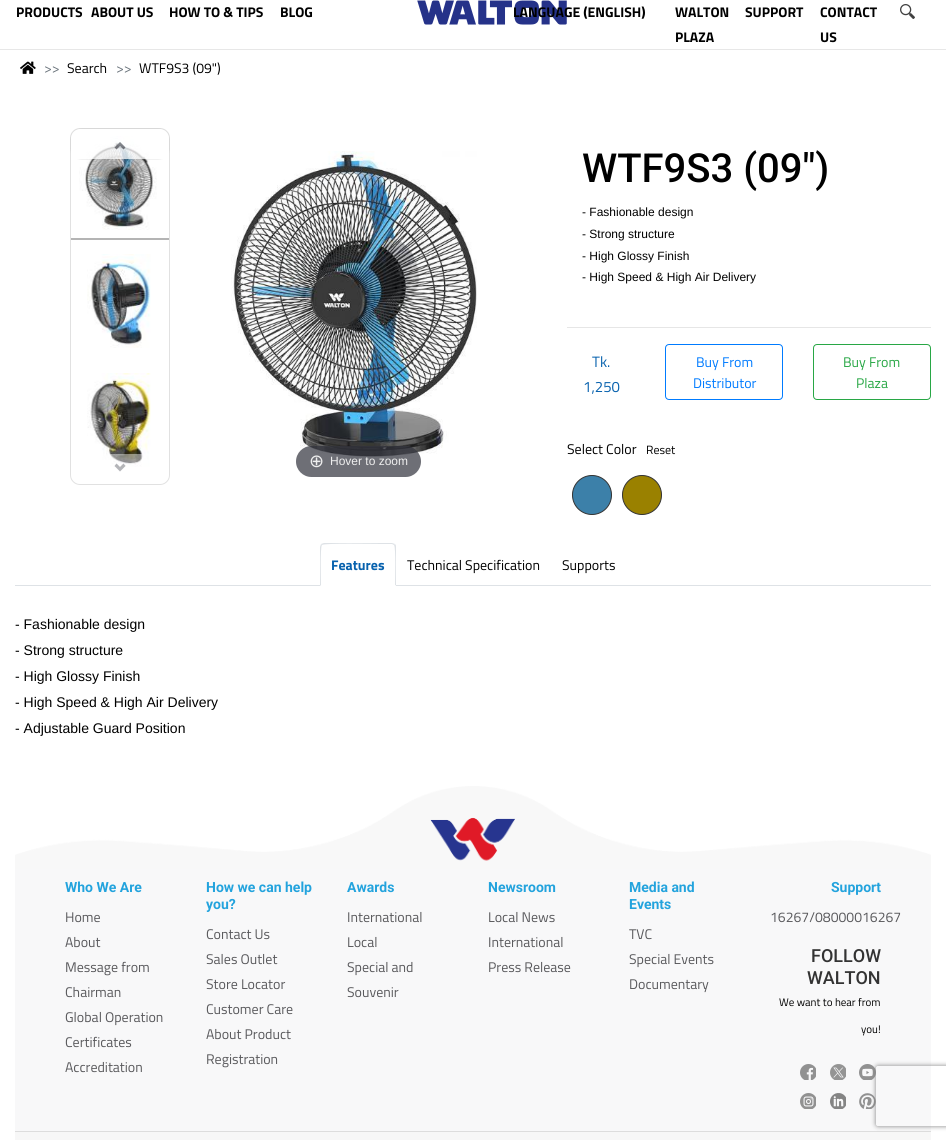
import math
import cairo



def rounded_rect(context, x, y, w, h, r):
    context.new_sub_path()
    for i, (u, v) in enumerate([(x + w - r, y + h - r), (x + r, y + h - r), (x + r, y + r), (x + w - r, y + r)]):
        context.arc(u, v, r, i * math.pi / 2, (i + 1) * math.pi / 2)
    context.close_path()


def draw_shadow(context, x, y, w, h, r, blur, alpha):
    context.push_group_with_content(cairo.Content.ALPHA)
    context.set_operator(cairo.Operator.SOURCE)
    for i in range(15, -16, -2):
        e = blur * i / 6
        if min(w, h) + 2 * e > 0:
            context.set_source_rgba(0, 0, 0, alpha * math.erfc((i - 1) / 8.5) / 2)
            rounded_rect(context, x - e, y - e, w + 2 * e, h + 2 * e, max(0, min(r + e + blur * .6, min(w, h) / 2 + e)))
            context.fill()
    context.mask(context.pop_group())


def draw_image(context, path, x, y, w, h):
    context.save()
    context.set_source_surface(cairo.ImageSurface.create_from_png(path), x, y)
    context.rectangle(x, y, w, h)
    context.fill()
    context.restore()


def draw(context):
    context.set_source_rgb(1, 1, 1)
    context.paint()
    context.set_source_rgb(231 / 255, 231 / 255, 231 / 255)
    context.rectangle(0, 49, 946, 1)
    context.fill()
    draw_image(context, "images/1.png", 417, 0, 150, 25)
    draw_image(context, "images/2.png", 900, 4, 15, 15)
    draw_image(context, "images/3.png", 20, 61, 16, 13)
    context.set_source_rgb(230 / 255, 230 / 255, 230 / 255)
    context.rectangle(567, 327, 364, 1)
    context.fill()
    rounded_rect(context, 665.5, 344.5, 117, 55, 3.5)
    context.set_source_rgb(0, 123 / 255, 1)
    context.set_line_width(1)
    context.stroke()
    rounded_rect(context, 813.5, 344.5, 117, 55, 3.5)
    context.set_source_rgb(40 / 255, 167 / 255, 69 / 255)
    context.stroke()
    context.set_source_rgb(60 / 255, 128 / 255, 169 / 255)
    context.arc(592, 495, 19.5, 0, 2 * math.pi)
    context.fill_preserve()
    context.set_source_rgb(51 / 255, 51 / 255, 51 / 255)
    context.stroke()
    context.set_source_rgb(154 / 255, 129 / 255, 0)
    context.arc(642, 495, 19.5, 0, 2 * math.pi)
    context.fill_preserve()
    context.set_source_rgb(51 / 255, 51 / 255, 51 / 255)
    context.stroke()
    rounded_rect(context, 70.5, 128.5, 99, 356, 9.5)
    context.set_source_rgb(225 / 255, 225 / 255, 225 / 255)
    context.stroke()
    draw_image(context, "images/4.png", 79, 136, 78, 94)
    context.save()
    context.set_fill_rule(cairo.FillRule.EVEN_ODD)
    context.new_path()
    context.move_to(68, 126)
    context.line_to(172, 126)
    context.line_to(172, 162)
    context.line_to(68, 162)
    context.close_path()
    context.move_to(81, 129)
    context.line_to(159, 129)
    context.curve_to(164.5, 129, 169, 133.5, 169, 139)
    context.line_to(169, 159)
    context.line_to(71, 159)
    context.line_to(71, 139)
    context.curve_to(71, 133.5, 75.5, 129, 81, 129)
    context.close_path()
    context.clip()
    context.set_source_rgb(153 / 255, 153 / 255, 153 / 255)
    draw_shadow(context, 71, 129, 98, 30, 10, 0.5, 0.5)
    context.restore()
    context.save()
    rounded_rect(context, 71, 129, 98, 355, 9)
    context.clip()
    context.set_source_rgba(1, 1, 1, 0.75)
    context.new_path()
    context.move_to(81, 129)
    context.line_to(159, 129)
    context.curve_to(164.5, 129, 169, 133.5, 169, 139)
    context.line_to(169, 159)
    context.line_to(71, 159)
    context.line_to(71, 139)
    context.curve_to(71, 133.5, 75.5, 129, 81, 129)
    context.close_path()
    context.fill()
    context.restore()
    context.set_source_rgba(49 / 255, 51 / 255, 61 / 255, 0.6)
    context.new_path()
    context.move_to(120, 142)
    context.line_to(125.5, 147.5)
    context.line_to(123.5, 149.5)
    context.line_to(120, 146)
    context.close_path()
    context.move_to(114.5, 147.5)
    context.line_to(120, 142)
    context.line_to(120, 146)
    context.line_to(116.5, 149.5)
    context.close_path()
    context.fill()
    context.set_source_rgb(180 / 255, 180 / 255, 180 / 255)
    context.rectangle(71, 238, 98, 2)
    context.fill()
    draw_image(context, "images/5.png", 87, 254, 64, 94)
    draw_image(context, "images/6.png", 87, 373, 64, 94)
    context.set_source_rgba(1, 1, 1, 0.45)
    context.new_path()
    context.move_to(71, 454)
    context.line_to(169, 454)
    context.line_to(169, 474)
    context.curve_to(169, 479.5, 164.5, 484, 159, 484)
    context.line_to(81, 484)
    context.curve_to(75.5, 484, 71, 479.5, 71, 474)
    context.close_path()
    context.fill()
    context.set_source_rgba(49 / 255, 51 / 255, 61 / 255, 0.36)
    context.new_path()
    context.move_to(120, 471.5)
    context.line_to(114.5, 466)
    context.line_to(116.5, 463.5)
    context.line_to(120, 467)
    context.close_path()
    context.move_to(125.5, 466)
    context.line_to(120, 471.5)
    context.line_to(120, 467)
    context.line_to(123.5, 463.5)
    context.close_path()
    context.fill()
    draw_image(context, "images/7.png", 231, 151, 246, 308)
    context.set_source_rgba(49 / 255, 51 / 255, 61 / 255, 0.7)
    rounded_rect(context, 296, 446, 125, 31, 15.5)
    context.fill()
    context.set_source_rgb(222 / 255, 226 / 255, 230 / 255)
    context.rectangle(15, 585, 916, 1)
    context.fill()
    context.set_source_rgb(1, 1, 1)
    context.new_path()
    context.move_to(324, 543)
    context.line_to(392, 543)
    context.curve_to(394, 543, 396, 545, 396, 547)
    context.line_to(396, 586)
    context.line_to(320, 586)
    context.line_to(320, 547)
    context.curve_to(320, 545, 322, 543, 324, 543)
    context.close_path()
    context.fill()
    context.set_source_rgb(222 / 255, 226 / 255, 230 / 255)
    context.new_path()
    context.move_to(324, 543)
    context.line_to(321, 544)
    context.line_to(322, 545)
    context.curve_to(324, 543, 374, 544, 381, 544)
    context.line_to(392, 544)
    context.line_to(394, 545)
    context.line_to(395, 544)
    context.line_to(392, 543)
    context.close_path()
    context.fill()
    context.new_path()
    context.move_to(396, 586)
    context.line_to(396, 547)
    context.curve_to(396, 546, 396, 545, 395, 544)
    context.line_to(394, 545)
    context.curve_to(396, 547, 395, 580, 395, 585)
    context.close_path()
    context.fill()
    context.set_source_rgb(1, 1, 1)
    context.new_path()
    context.move_to(396, 586)
    context.line_to(395, 585)
    context.line_to(321, 585)
    context.line_to(320, 586)
    context.close_path()
    context.fill()
    context.set_source_rgb(222 / 255, 226 / 255, 230 / 255)
    context.new_path()
    context.move_to(320, 586)
    context.line_to(321, 585)
    context.curve_to(321, 580, 320, 547, 322, 545)
    context.line_to(321, 544)
    context.line_to(320, 547)
    context.close_path()
    context.fill()
    draw_image(context, "images/8.png", 15, 786, 916, 83)
    context.set_source_rgb(248 / 255, 248 / 255, 249 / 255)
    context.rectangle(15, 869, 916, 262)
    context.fill()
    draw_image(context, "images/9.png", 800, 1064, 16, 16)
    draw_image(context, "images/10.png", 830, 1064, 16, 16)
    draw_image(context, "images/11.png", 859, 1064, 17, 16)
    draw_image(context, "images/12.png", 800, 1093, 16, 16)
    draw_image(context, "images/13.png", 830, 1093, 16, 16)
    draw_image(context, "images/14.png", 859, 1093, 17, 16)
    context.set_source_rgb(221 / 255, 221 / 255, 221 / 255)
    context.rectangle(15, 1131, 916, 1)
    context.fill()
    context.set_source_rgb(247 / 255, 247 / 255, 247 / 255)
    context.rectangle(15, 1132, 916, 8)
    context.fill()
    context.save()
    context.set_fill_rule(cairo.FillRule.EVEN_ODD)
    context.new_path()
    context.move_to(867, 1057)
    context.line_to(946, 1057)
    context.line_to(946, 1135)
    context.line_to(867, 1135)
    context.close_path()
    context.move_to(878, 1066)
    context.line_to(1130, 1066)
    context.curve_to(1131, 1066, 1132, 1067, 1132, 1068)
    context.line_to(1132, 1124)
    context.curve_to(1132, 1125, 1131, 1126, 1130, 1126)
    context.line_to(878, 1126)
    context.curve_to(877, 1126, 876, 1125, 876, 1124)
    context.line_to(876, 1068)
    context.curve_to(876, 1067, 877, 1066, 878, 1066)
    context.close_path()
    context.clip()
    context.set_source_rgb(128 / 255, 128 / 255, 128 / 255)
    draw_shadow(context, 876, 1066, 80, 60, 2, 2.5, 1)
    context.restore()
    context.select_font_face("Titillium Web", cairo.FontSlant.NORMAL, cairo.FontWeight.BOLD)
    context.set_font_size(14)
    context.set_source_rgb(0, 0, 0)
    context.move_to(16, 17)
    context.show_text("PRODUCTS")
    context.move_to(91, 17)
    context.show_text("ABOUT US")
    context.move_to(169, 17)
    context.show_text("HOW TO & TIPS")
    context.move_to(280, 17)
    context.show_text("BLOG")
    context.move_to(513, 17)
    context.show_text("LANGUAGE (ENGLISH)")
    context.move_to(675, 17)
    context.show_text("WALTON")
    context.move_to(675, 42)
    context.show_text("PLAZA")
    context.move_to(745, 17)
    context.show_text("SUPPORT")
    context.move_to(820, 17)
    context.show_text("CONTACT")
    context.move_to(820, 42)
    context.show_text("US")
    context.select_font_face("Titillium Web")
    context.set_source_rgb(108 / 255, 117 / 255, 125 / 255)
    context.move_to(44, 73)
    context.show_text(">>")
    context.set_source_rgb(0, 0, 0)
    context.move_to(67, 73)
    context.show_text("Search")
    context.set_source_rgb(108 / 255, 117 / 255, 125 / 255)
    context.move_to(116, 73)
    context.show_text(">>")
    context.set_source_rgb(0, 0, 0)
    context.move_to(139, 73)
    context.show_text("WTF9S3 (09\")")
    context.select_font_face("Roboto Medium")
    context.set_font_size(40)
    context.move_to(582, 182)
    context.show_text("WTF9S3 (09\")")
    context.select_font_face("Liberation Sans")
    context.set_font_size(12)
    context.move_to(582, 216)
    context.show_text("- Fashionable design")
    context.move_to(582, 238)
    context.show_text("- Strong structure")
    context.move_to(582, 260)
    context.show_text("- High Glossy Finish")
    context.move_to(582, 281)
    context.show_text("- High Speed & High Air Delivery")
    context.select_font_face("Titillium Web")
    context.set_font_size(15)
    context.set_source_rgb(8 / 255, 98 / 255, 174 / 255)
    context.move_to(592, 367)
    context.show_text("Tk.")
    context.move_to(583, 392)
    context.show_text("1,250")
    context.set_font_size(14)
    context.set_source_rgb(0, 123 / 255, 1)
    context.move_to(696, 367)
    context.show_text("Buy From")
    context.move_to(693, 388)
    context.show_text("Distributor")
    context.set_source_rgb(40 / 255, 167 / 255, 69 / 255)
    context.move_to(843, 367)
    context.show_text("Buy From")
    context.move_to(856, 388)
    context.show_text("Plaza")
    context.set_source_rgb(0, 0, 0)
    context.move_to(567, 454)
    context.show_text("Select Color")
    context.set_font_size(12)
    context.move_to(646, 454)
    context.show_text("Reset")
    context.select_font_face("DejaVu Sans")
    context.set_font_size(18)
    context.set_source_rgb(238 / 255, 238 / 255, 238 / 255)
    context.move_to(309, 467)
    context.show_text("⊕")
    context.select_font_face("Liberation Sans")
    context.set_font_size(12)
    context.move_to(330, 465)
    context.show_text("Hover to zoom")
    context.select_font_face("Titillium Web", cairo.FontSlant.NORMAL, cairo.FontWeight.BOLD)
    context.set_font_size(14)
    context.set_source_rgb(8 / 255, 98 / 255, 174 / 255)
    context.move_to(331, 570)
    context.show_text("Features")
    context.select_font_face("Titillium Web")
    context.set_source_rgb(0, 0, 0)
    context.move_to(407, 570)
    context.show_text("Technical Specification")
    context.move_to(562, 570)
    context.show_text("Supports")
    context.select_font_face("Liberation Sans")
    context.move_to(15, 629)
    context.show_text("- Fashionable design")
    context.move_to(15, 655)
    context.show_text("- Strong structure")
    context.move_to(15, 681)
    context.show_text("- High Glossy Finish")
    context.move_to(15, 707)
    context.show_text("- High Speed & High Air Delivery")
    context.move_to(15, 733)
    context.show_text("- Adjustable Guard Position")
    context.select_font_face("Roboto", cairo.FontSlant.NORMAL, cairo.FontWeight.BOLD)
    context.set_source_rgb(35 / 255, 163 / 255, 221 / 255)
    context.move_to(65, 892)
    context.show_text("Who We Are")
    context.select_font_face("Titillium Web")
    context.set_source_rgb(89 / 255, 89 / 255, 92 / 255)
    context.move_to(65, 922)
    context.show_text("Home")
    context.move_to(65, 947)
    context.show_text("About")
    context.move_to(65, 972)
    context.show_text("Message from")
    context.move_to(65, 997)
    context.show_text("Chairman")
    context.move_to(65, 1022)
    context.show_text("Global Operation")
    context.move_to(65, 1047)
    context.show_text("Certificates")
    context.move_to(65, 1072)
    context.show_text("Accreditation")
    context.select_font_face("Roboto", cairo.FontSlant.NORMAL, cairo.FontWeight.BOLD)
    context.set_source_rgb(35 / 255, 163 / 255, 221 / 255)
    context.move_to(206, 892)
    context.show_text("How we can help")
    context.move_to(206, 909)
    context.show_text("you?")
    context.select_font_face("Titillium Web")
    context.set_source_rgb(89 / 255, 89 / 255, 92 / 255)
    context.move_to(206, 939)
    context.show_text("Contact Us")
    context.move_to(206, 964)
    context.show_text("Sales Outlet")
    context.move_to(206, 989)
    context.show_text("Store Locator")
    context.move_to(206, 1014)
    context.show_text("Customer Care")
    context.move_to(206, 1039)
    context.show_text("About Product")
    context.move_to(206, 1064)
    context.show_text("Registration")
    context.select_font_face("Roboto", cairo.FontSlant.NORMAL, cairo.FontWeight.BOLD)
    context.set_source_rgb(35 / 255, 163 / 255, 221 / 255)
    context.move_to(347, 892)
    context.show_text("Awards")
    context.select_font_face("Titillium Web")
    context.set_source_rgb(89 / 255, 89 / 255, 92 / 255)
    context.move_to(347, 922)
    context.show_text("International")
    context.move_to(347, 947)
    context.show_text("Local")
    context.move_to(347, 972)
    context.show_text("Special and")
    context.move_to(347, 997)
    context.show_text("Souvenir")
    context.select_font_face("Roboto", cairo.FontSlant.NORMAL, cairo.FontWeight.BOLD)
    context.set_source_rgb(35 / 255, 163 / 255, 221 / 255)
    context.move_to(488, 892)
    context.show_text("Newsroom")
    context.select_font_face("Titillium Web")
    context.set_source_rgb(89 / 255, 89 / 255, 92 / 255)
    context.move_to(488, 922)
    context.show_text("Local News")
    context.move_to(488, 947)
    context.show_text("International")
    context.move_to(488, 972)
    context.show_text("Press Release")
    context.select_font_face("Roboto", cairo.FontSlant.NORMAL, cairo.FontWeight.BOLD)
    context.set_source_rgb(35 / 255, 163 / 255, 221 / 255)
    context.move_to(629, 892)
    context.show_text("Media and")
    context.move_to(629, 909)
    context.show_text("Events")
    context.select_font_face("Titillium Web")
    context.set_source_rgb(89 / 255, 89 / 255, 92 / 255)
    context.move_to(629, 939)
    context.show_text("TVC")
    context.move_to(629, 964)
    context.show_text("Special Events")
    context.move_to(629, 989)
    context.show_text("Documentary")
    context.select_font_face("Roboto", cairo.FontSlant.NORMAL, cairo.FontWeight.BOLD)
    context.set_source_rgb(35 / 255, 163 / 255, 221 / 255)
    context.move_to(831, 892)
    context.show_text("Support")
    context.select_font_face("Titillium Web")
    context.set_source_rgb(89 / 255, 89 / 255, 92 / 255)
    context.move_to(770, 922)
    context.show_text("16267/08000016267")
    context.select_font_face("Roboto Medium")
    context.set_font_size(18)
    context.set_source_rgb(51 / 255, 51 / 255, 51 / 255)
    context.move_to(811, 962)
    context.show_text("FOLLOW")
    context.move_to(807, 984)
    context.show_text("WALTON")
    context.select_font_face("Titillium Web")
    context.set_font_size(11)
    context.set_source_rgb(0, 0, 0)
    context.move_to(779, 1006)
    context.show_text("We want to hear from")
    context.move_to(861, 1033)
    context.show_text("you!")


surface = cairo.ImageSurface(cairo.Format.RGB24, 946, 1140)
context = cairo.Context(surface)
options = cairo.FontOptions()
options.set_hint_metrics(cairo.HintMetrics.OFF)
options.set_hint_style(cairo.HintStyle.NONE)
context.set_font_options(options)
context.set_miter_limit(4)
draw(context)
surface.write_to_png("out.png")
